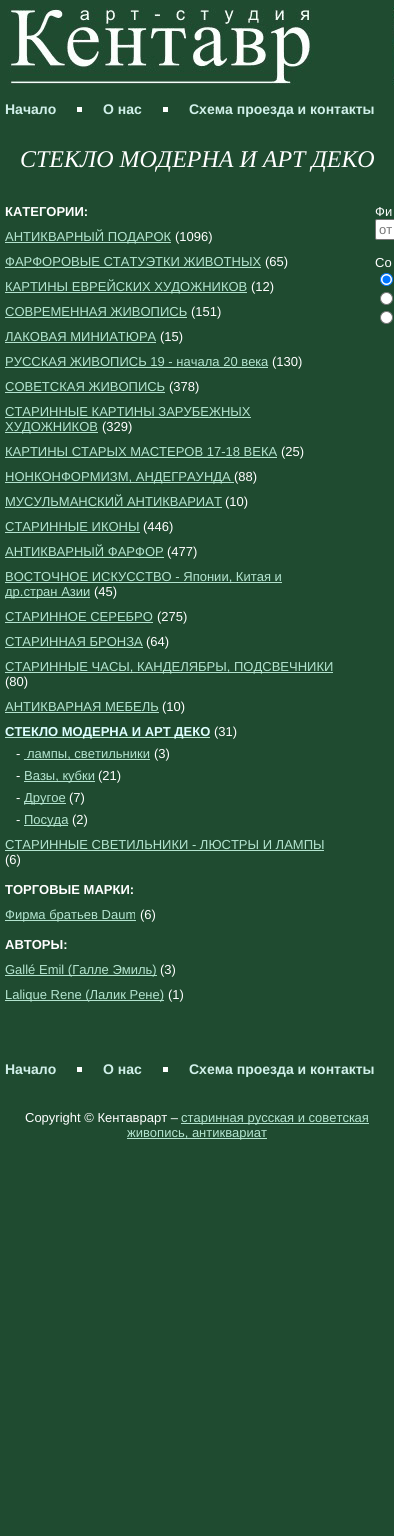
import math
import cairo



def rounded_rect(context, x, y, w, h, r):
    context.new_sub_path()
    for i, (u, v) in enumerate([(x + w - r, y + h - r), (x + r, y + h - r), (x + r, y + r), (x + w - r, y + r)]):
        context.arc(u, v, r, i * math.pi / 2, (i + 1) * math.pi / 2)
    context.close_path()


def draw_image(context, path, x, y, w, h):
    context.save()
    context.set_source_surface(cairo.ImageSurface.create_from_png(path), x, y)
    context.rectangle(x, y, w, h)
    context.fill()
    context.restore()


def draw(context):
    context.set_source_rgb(31 / 255, 75 / 255, 48 / 255)
    context.paint()
    draw_image(context, "images/1.png", 8, 8, 306, 77)
    draw_image(context, "images/2.png", 392, 7, 2, 78)
    context.set_source_rgb(254 / 255, 1, 254 / 255)
    context.rectangle(77, 107, 5, 5)
    context.fill()
    context.rectangle(163, 107, 5, 5)
    context.fill()
    context.set_source_rgb(179 / 255, 228 / 255, 207 / 255)
    context.rectangle(5, 242, 166, 1)
    context.fill()
    context.rectangle(5, 267, 256, 1)
    context.fill()
    context.rectangle(5, 292, 242, 1)
    context.fill()
    context.rectangle(5, 317, 182, 1)
    context.fill()
    context.rectangle(5, 342, 151, 1)
    context.fill()
    context.rectangle(5, 367, 263, 1)
    context.fill()
    context.rectangle(5, 392, 160, 1)
    context.fill()
    context.rectangle(5, 417, 246, 1)
    context.fill()
    context.rectangle(5, 432, 93, 1)
    context.fill()
    context.rectangle(5, 457, 272, 1)
    context.fill()
    context.rectangle(5, 482, 229, 1)
    context.fill()
    context.rectangle(5, 507, 217, 1)
    context.fill()
    context.rectangle(5, 532, 135, 1)
    context.fill()
    context.rectangle(5, 557, 159, 1)
    context.fill()
    context.rectangle(5, 582, 277, 1)
    context.fill()
    context.rectangle(5, 597, 85, 1)
    context.fill()
    context.rectangle(5, 622, 148, 1)
    context.fill()
    context.rectangle(5, 647, 138, 1)
    context.fill()
    context.rectangle(5, 672, 328, 1)
    context.fill()
    context.rectangle(5, 712, 154, 1)
    context.fill()
    context.rectangle(5, 737, 205, 1)
    context.fill()
    context.rectangle(24, 759, 126, 1)
    context.fill()
    context.rectangle(24, 781, 71, 1)
    context.fill()
    context.rectangle(24, 803, 42, 1)
    context.fill()
    context.rectangle(24, 825, 44, 1)
    context.fill()
    context.rectangle(5, 850, 319, 1)
    context.fill()
    context.rectangle(5, 920, 131, 1)
    context.fill()
    context.rectangle(5, 975, 152, 1)
    context.fill()
    context.rectangle(5, 1000, 159, 1)
    context.fill()
    context.set_source_rgb(1, 1, 1)
    rounded_rect(context, 375.5, 219.5, 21, 20, 1.5)
    context.fill_preserve()
    context.set_source_rgb(118 / 255, 118 / 255, 118 / 255)
    context.set_line_width(1)
    context.stroke()
    context.set_source_rgb(1, 1, 1)
    context.arc(386.5, 279.5, 6, 0, 2 * math.pi)
    context.fill_preserve()
    context.set_source_rgb(0, 117 / 255, 1)
    context.stroke()
    context.arc(386.5, 279.5, 4, 0, 2 * math.pi)
    context.fill()
    context.set_source_rgb(1, 1, 1)
    context.arc(386.5, 298.5, 6, 0, 2 * math.pi)
    context.fill_preserve()
    context.set_source_rgb(118 / 255, 118 / 255, 118 / 255)
    context.stroke()
    context.set_source_rgb(1, 1, 1)
    context.arc(386.5, 317.5, 6, 0, 2 * math.pi)
    context.fill_preserve()
    context.set_source_rgb(118 / 255, 118 / 255, 118 / 255)
    context.stroke()
    context.set_source_rgb(254 / 255, 1, 254 / 255)
    context.rectangle(77, 1067, 5, 5)
    context.fill()
    context.rectangle(163, 1067, 5, 5)
    context.fill()
    context.set_source_rgb(179 / 255, 228 / 255, 207 / 255)
    context.rectangle(181, 1123, 188, 1)
    context.fill()
    context.rectangle(127, 1138, 140, 1)
    context.fill()
    context.select_font_face("Liberation Sans", cairo.FontSlant.NORMAL, cairo.FontWeight.BOLD)
    context.set_font_size(14)
    context.set_source_rgb(208 / 255, 240 / 255, 233 / 255)
    context.move_to(5, 114)
    context.show_text("Начало")
    context.move_to(103, 114)
    context.show_text("О нас")
    context.move_to(189, 114)
    context.show_text("Схема проезда и контакты")
    context.select_font_face("Liberation Serif", cairo.FontSlant.ITALIC)
    context.set_font_size(24)
    context.set_source_rgb(1, 1, 1)
    context.move_to(20, 167)
    context.show_text("СТЕКЛО МОДЕРНА И АРТ ДЕКО")
    context.select_font_face("Liberation Sans", cairo.FontSlant.NORMAL, cairo.FontWeight.BOLD)
    context.set_font_size(13)
    context.move_to(5, 216)
    context.show_text("КАТЕГОРИИ:")
    context.select_font_face("Liberation Sans")
    context.set_source_rgb(179 / 255, 228 / 255, 207 / 255)
    context.move_to(5, 241)
    context.show_text("АНТИКВАРНЫЙ ПОДАРОК")
    context.set_source_rgb(1, 1, 1)
    context.move_to(175, 241)
    context.show_text("(1096)")
    context.set_source_rgb(179 / 255, 228 / 255, 207 / 255)
    context.move_to(5, 266)
    context.show_text("ФАРФОРОВЫЕ СТАТУЭТКИ ЖИВОТНЫХ")
    context.set_source_rgb(1, 1, 1)
    context.move_to(265, 266)
    context.show_text("(65)")
    context.set_source_rgb(179 / 255, 228 / 255, 207 / 255)
    context.move_to(5, 291)
    context.show_text("КАРТИНЫ ЕВРЕЙСКИХ ХУДОЖНИКОВ")
    context.set_source_rgb(1, 1, 1)
    context.move_to(251, 291)
    context.show_text("(12)")
    context.set_source_rgb(179 / 255, 228 / 255, 207 / 255)
    context.move_to(5, 316)
    context.show_text("СОВРЕМЕННАЯ ЖИВОПИСЬ")
    context.set_source_rgb(1, 1, 1)
    context.move_to(191, 316)
    context.show_text("(151)")
    context.set_source_rgb(179 / 255, 228 / 255, 207 / 255)
    context.move_to(5, 341)
    context.show_text("ЛАКОВАЯ МИНИАТЮРА")
    context.set_source_rgb(1, 1, 1)
    context.move_to(160, 341)
    context.show_text("(15)")
    context.set_source_rgb(179 / 255, 228 / 255, 207 / 255)
    context.move_to(5, 366)
    context.show_text("РУССКАЯ ЖИВОПИСЬ 19 - начала 20 века")
    context.set_source_rgb(1, 1, 1)
    context.move_to(272, 366)
    context.show_text("(130)")
    context.set_source_rgb(179 / 255, 228 / 255, 207 / 255)
    context.move_to(5, 391)
    context.show_text("СОВЕТСКАЯ ЖИВОПИСЬ")
    context.set_source_rgb(1, 1, 1)
    context.move_to(169, 391)
    context.show_text("(378)")
    context.set_source_rgb(179 / 255, 228 / 255, 207 / 255)
    context.move_to(5, 416)
    context.show_text("СТАРИННЫЕ КАРТИНЫ ЗАРУБЕЖНЫХ")
    context.move_to(5, 431)
    context.show_text("ХУДОЖНИКОВ")
    context.set_source_rgb(1, 1, 1)
    context.move_to(102, 431)
    context.show_text("(329)")
    context.set_source_rgb(179 / 255, 228 / 255, 207 / 255)
    context.move_to(5, 456)
    context.show_text("КАРТИНЫ СТАРЫХ МАСТЕРОВ 17-18 ВЕКА")
    context.set_source_rgb(1, 1, 1)
    context.move_to(281, 456)
    context.show_text("(25)")
    context.set_source_rgb(179 / 255, 228 / 255, 207 / 255)
    context.move_to(5, 481)
    context.show_text("НОНКОНФОРМИЗМ, АНДЕГРАУНДА")
    context.set_source_rgb(1, 1, 1)
    context.move_to(234, 481)
    context.show_text("(88)")
    context.set_source_rgb(179 / 255, 228 / 255, 207 / 255)
    context.move_to(5, 506)
    context.show_text("МУСУЛЬМАНСКИЙ АНТИКВАРИАТ")
    context.set_source_rgb(1, 1, 1)
    context.move_to(225, 506)
    context.show_text("(10)")
    context.set_source_rgb(179 / 255, 228 / 255, 207 / 255)
    context.move_to(5, 531)
    context.show_text("СТАРИННЫЕ ИКОНЫ")
    context.set_source_rgb(1, 1, 1)
    context.move_to(143, 531)
    context.show_text("(446)")
    context.set_source_rgb(179 / 255, 228 / 255, 207 / 255)
    context.move_to(5, 556)
    context.show_text("АНТИКВАРНЫЙ ФАРФОР")
    context.set_source_rgb(1, 1, 1)
    context.move_to(167, 556)
    context.show_text("(477)")
    context.set_source_rgb(179 / 255, 228 / 255, 207 / 255)
    context.move_to(5, 581)
    context.show_text("ВОСТОЧНОЕ ИСКУССТВО - Японии, Китая и")
    context.move_to(5, 596)
    context.show_text("др.стран Азии")
    context.set_source_rgb(1, 1, 1)
    context.move_to(94, 596)
    context.show_text("(45)")
    context.set_source_rgb(179 / 255, 228 / 255, 207 / 255)
    context.move_to(5, 621)
    context.show_text("СТАРИННОЕ СЕРЕБРО")
    context.set_source_rgb(1, 1, 1)
    context.move_to(157, 621)
    context.show_text("(275)")
    context.set_source_rgb(179 / 255, 228 / 255, 207 / 255)
    context.move_to(5, 646)
    context.show_text("СТАРИННАЯ БРОНЗА")
    context.set_source_rgb(1, 1, 1)
    context.move_to(146, 646)
    context.show_text("(64)")
    context.set_source_rgb(179 / 255, 228 / 255, 207 / 255)
    context.move_to(5, 671)
    context.show_text("СТАРИННЫЕ ЧАСЫ, КАНДЕЛЯБРЫ, ПОДСВЕЧНИКИ")
    context.set_source_rgb(1, 1, 1)
    context.move_to(5, 686)
    context.show_text("(80)")
    context.set_source_rgb(179 / 255, 228 / 255, 207 / 255)
    context.move_to(5, 711)
    context.show_text("АНТИКВАРНАЯ МЕБЕЛЬ")
    context.set_source_rgb(1, 1, 1)
    context.move_to(162, 711)
    context.show_text("(10)")
    context.select_font_face("Liberation Sans", cairo.FontSlant.NORMAL, cairo.FontWeight.BOLD)
    context.set_source_rgb(221 / 255, 1, 1)
    context.move_to(5, 736)
    context.show_text("СТЕКЛО МОДЕРНА И АРТ ДЕКО")
    context.select_font_face("Liberation Sans")
    context.set_source_rgb(1, 1, 1)
    context.move_to(214, 736)
    context.show_text("(31)")
    context.move_to(16, 758)
    context.show_text("-")
    context.set_source_rgb(179 / 255, 228 / 255, 207 / 255)
    context.move_to(27, 758)
    context.show_text("лампы, светильники")
    context.set_source_rgb(1, 1, 1)
    context.move_to(154, 758)
    context.show_text("(3)")
    context.move_to(16, 780)
    context.show_text("-")
    context.set_source_rgb(179 / 255, 228 / 255, 207 / 255)
    context.move_to(24, 780)
    context.show_text("Вазы, кубки")
    context.set_source_rgb(1, 1, 1)
    context.move_to(98, 780)
    context.show_text("(21)")
    context.move_to(16, 802)
    context.show_text("-")
    context.set_source_rgb(179 / 255, 228 / 255, 207 / 255)
    context.move_to(24, 802)
    context.show_text("Другое")
    context.set_source_rgb(1, 1, 1)
    context.move_to(69, 802)
    context.show_text("(7)")
    context.move_to(16, 824)
    context.show_text("-")
    context.set_source_rgb(179 / 255, 228 / 255, 207 / 255)
    context.move_to(24, 824)
    context.show_text("Посуда")
    context.set_source_rgb(1, 1, 1)
    context.move_to(72, 824)
    context.show_text("(2)")
    context.set_source_rgb(179 / 255, 228 / 255, 207 / 255)
    context.move_to(5, 849)
    context.show_text("СТАРИННЫЕ СВЕТИЛЬНИКИ - ЛЮСТРЫ И ЛАМПЫ")
    context.set_source_rgb(1, 1, 1)
    context.move_to(5, 864)
    context.show_text("(6)")
    context.select_font_face("Liberation Sans", cairo.FontSlant.NORMAL, cairo.FontWeight.BOLD)
    context.move_to(5, 894)
    context.show_text("ТОРГОВЫЕ МАРКИ:")
    context.select_font_face("Liberation Sans")
    context.set_source_rgb(179 / 255, 228 / 255, 207 / 255)
    context.move_to(5, 919)
    context.show_text("Фирма братьев Daum")
    context.set_source_rgb(1, 1, 1)
    context.move_to(140, 919)
    context.show_text("(6)")
    context.select_font_face("Liberation Sans", cairo.FontSlant.NORMAL, cairo.FontWeight.BOLD)
    context.move_to(5, 949)
    context.show_text("АВТОРЫ:")
    context.select_font_face("Liberation Sans")
    context.set_source_rgb(179 / 255, 228 / 255, 207 / 255)
    context.move_to(5, 974)
    context.show_text("Gallé Emil (Галле Эмиль)")
    context.set_source_rgb(1, 1, 1)
    context.move_to(160, 974)
    context.show_text("(3)")
    context.set_source_rgb(179 / 255, 228 / 255, 207 / 255)
    context.move_to(5, 999)
    context.show_text("Lalique Rene (Лалик Рене)")
    context.set_source_rgb(1, 1, 1)
    context.move_to(168, 999)
    context.show_text("(1)")
    context.move_to(375, 216)
    context.show_text("Фи")
    context.set_source_rgb(117 / 255, 117 / 255, 117 / 255)
    context.move_to(379, 234)
    context.show_text("от")
    context.set_source_rgb(1, 1, 1)
    context.move_to(375, 267)
    context.show_text("Со")
    context.select_font_face("Liberation Sans", cairo.FontSlant.NORMAL, cairo.FontWeight.BOLD)
    context.set_font_size(14)
    context.set_source_rgb(208 / 255, 240 / 255, 233 / 255)
    context.move_to(5, 1074)
    context.show_text("Начало")
    context.move_to(103, 1074)
    context.show_text("О нас")
    context.move_to(189, 1074)
    context.show_text("Схема проезда и контакты")
    context.select_font_face("Liberation Sans")
    context.set_font_size(13)
    context.set_source_rgb(1, 1, 1)
    context.move_to(25, 1122)
    context.show_text("Copyright © Кентаврарт –")
    context.set_source_rgb(179 / 255, 228 / 255, 207 / 255)
    context.move_to(181, 1122)
    context.show_text("старинная русская и советская")
    context.move_to(127, 1137)
    context.show_text("живопись, антиквариат")


surface = cairo.ImageSurface(cairo.Format.RGB24, 394, 1536)
context = cairo.Context(surface)
options = cairo.FontOptions()
options.set_hint_metrics(cairo.HintMetrics.OFF)
options.set_hint_style(cairo.HintStyle.NONE)
context.set_font_options(options)
context.set_miter_limit(4)
draw(context)
surface.write_to_png("out.png")
